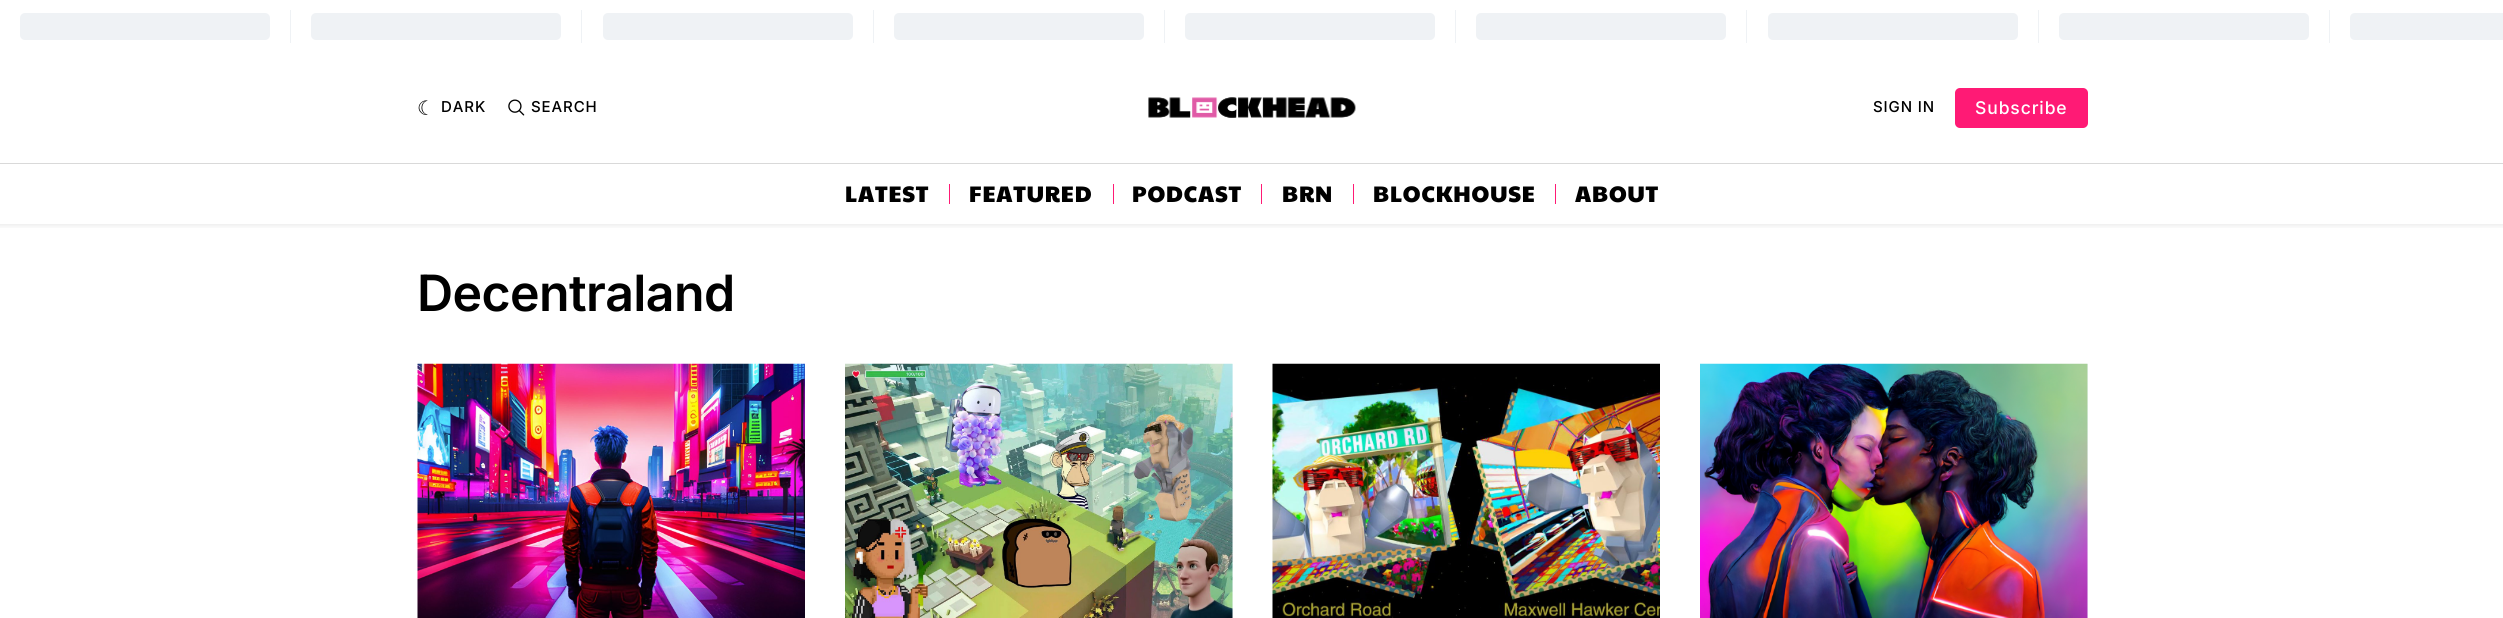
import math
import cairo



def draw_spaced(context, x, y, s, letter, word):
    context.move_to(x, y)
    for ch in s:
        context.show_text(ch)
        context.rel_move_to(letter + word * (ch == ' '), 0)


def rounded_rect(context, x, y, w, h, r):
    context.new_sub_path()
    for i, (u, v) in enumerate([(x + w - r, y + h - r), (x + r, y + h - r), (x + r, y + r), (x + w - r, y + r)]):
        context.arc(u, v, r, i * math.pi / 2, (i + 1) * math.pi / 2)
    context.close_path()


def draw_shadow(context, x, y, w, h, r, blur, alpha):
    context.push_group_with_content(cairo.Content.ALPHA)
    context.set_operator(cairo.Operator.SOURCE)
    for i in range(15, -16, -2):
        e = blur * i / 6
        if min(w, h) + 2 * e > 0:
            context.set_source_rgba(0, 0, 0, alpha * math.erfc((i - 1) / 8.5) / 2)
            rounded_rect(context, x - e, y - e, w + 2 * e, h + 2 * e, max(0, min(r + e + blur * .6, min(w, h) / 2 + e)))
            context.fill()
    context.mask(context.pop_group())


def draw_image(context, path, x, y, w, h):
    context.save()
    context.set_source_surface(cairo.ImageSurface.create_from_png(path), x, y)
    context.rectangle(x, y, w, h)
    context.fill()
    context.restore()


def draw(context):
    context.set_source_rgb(1, 1, 1)
    context.paint()
    context.save()
    context.rectangle(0, 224, 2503, 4)
    context.clip()
    context.set_source_rgb(0, 0, 0)
    draw_shadow(context, -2, 50, 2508, 176, 0, 2.5, 0.08)
    context.restore()
    context.set_source_rgb(1, 1, 1)
    context.rectangle(0, 47, 2503, 6)
    context.fill()
    context.set_source_rgb(239 / 255, 242 / 255, 245 / 255)
    context.rectangle(290, 10, 1, 33)
    context.fill()
    rounded_rect(context, 20, 13, 250, 27, 5)
    context.fill()
    context.rectangle(581, 10, 1, 33)
    context.fill()
    rounded_rect(context, 311, 13, 250, 27, 5)
    context.fill()
    context.rectangle(873, 10, 1, 33)
    context.fill()
    rounded_rect(context, 603, 13, 250, 27, 5)
    context.fill()
    context.rectangle(1164, 10, 1, 33)
    context.fill()
    rounded_rect(context, 894, 13, 250, 27, 5)
    context.fill()
    context.rectangle(1455, 10, 1, 33)
    context.fill()
    rounded_rect(context, 1185, 13, 250, 27, 5)
    context.fill()
    context.rectangle(1746, 10, 1, 33)
    context.fill()
    rounded_rect(context, 1476, 13, 250, 27, 5)
    context.fill()
    context.rectangle(2038, 10, 1, 33)
    context.fill()
    rounded_rect(context, 1768, 13, 250, 27, 5)
    context.fill()
    context.rectangle(2329, 10, 1, 33)
    context.fill()
    rounded_rect(context, 2059, 13, 250, 27, 5)
    context.fill()
    context.new_path()
    context.move_to(2355, 13)
    context.line_to(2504, 13)
    context.line_to(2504, 40)
    context.line_to(2355, 40)
    context.curve_to(2352, 40, 2350, 38, 2350, 35)
    context.line_to(2350, 18)
    context.curve_to(2350, 15, 2352, 13, 2355, 13)
    context.close_path()
    context.fill()
    context.set_source_rgb(217 / 255, 217 / 255, 217 / 255)
    context.rectangle(0, 163, 2503, 1)
    context.fill()
    draw_image(context, "images/1.png", 508, 99, 17, 17)
    draw_image(context, "images/2.png", 1148, 97, 208, 21)
    context.set_source_rgb(1, 26 / 255, 117 / 255)
    rounded_rect(context, 1955, 88, 133, 40, 5)
    context.fill()
    context.rectangle(949, 184, 1, 20)
    context.fill()
    context.rectangle(1113, 184, 1, 20)
    context.fill()
    context.rectangle(1261, 184, 1, 20)
    context.fill()
    context.rectangle(1353, 184, 1, 20)
    context.fill()
    context.rectangle(1555, 184, 1, 20)
    context.fill()
    draw_image(context, "images/3.png", 417, 363, 388, 255)
    context.set_source_rgb(239 / 255, 248 / 255, 250 / 255)
    context.rectangle(1232, 364, 1, 254)
    context.fill()
    draw_image(context, "images/4.png", 845, 363, 388, 255)
    draw_image(context, "images/5.png", 1272, 363, 388, 255)
    context.rectangle(2087, 364, 1, 254)
    context.fill()
    draw_image(context, "images/6.png", 1700, 363, 388, 255)
    context.select_font_face("DejaVu Sans")
    context.set_font_size(20)
    context.set_source_rgb(0, 0, 0)
    draw_spaced(context, 417, 115, "☾", 0.9, 0)
    context.select_font_face("Inter Medium")
    context.set_font_size(15)
    draw_spaced(context, 441, 112, "DARK", 0.9, 0)
    draw_spaced(context, 531, 112, "SEARCH", 0.9, 0)
    draw_spaced(context, 1873, 112, "SIGN IN", 0.9, 0)
    context.set_font_size(17.5)
    context.set_source_rgb(1, 1, 1)
    draw_spaced(context, 1975, 114, "Subscribe", 0.9, 0)
    context.select_font_face("Paytone One")
    context.set_font_size(22.5)
    context.set_source_rgb(0, 0, 0)
    draw_spaced(context, 845, 202, "LATEST", 0.9, 0)
    draw_spaced(context, 969, 202, "FEATURED", 0.9, 0)
    draw_spaced(context, 1132, 202, "PODCAST", 0.9, 0)
    draw_spaced(context, 1282, 202, "BRN", 0.9, 0)
    draw_spaced(context, 1373, 202, "BLOCKHOUSE", 0.9, 0)
    draw_spaced(context, 1575, 202, "ABOUT", 0.9, 0)
    context.select_font_face("Inter SemiBold")
    context.set_font_size(50)
    draw_spaced(context, 417, 311, "Decentraland", -0.6, 0)


surface = cairo.ImageSurface(cairo.Format.RGB24, 2503, 618)
context = cairo.Context(surface)
options = cairo.FontOptions()
options.set_hint_metrics(cairo.HintMetrics.OFF)
options.set_hint_style(cairo.HintStyle.NONE)
context.set_font_options(options)
context.set_miter_limit(4)
draw(context)
surface.write_to_png("out.png")
